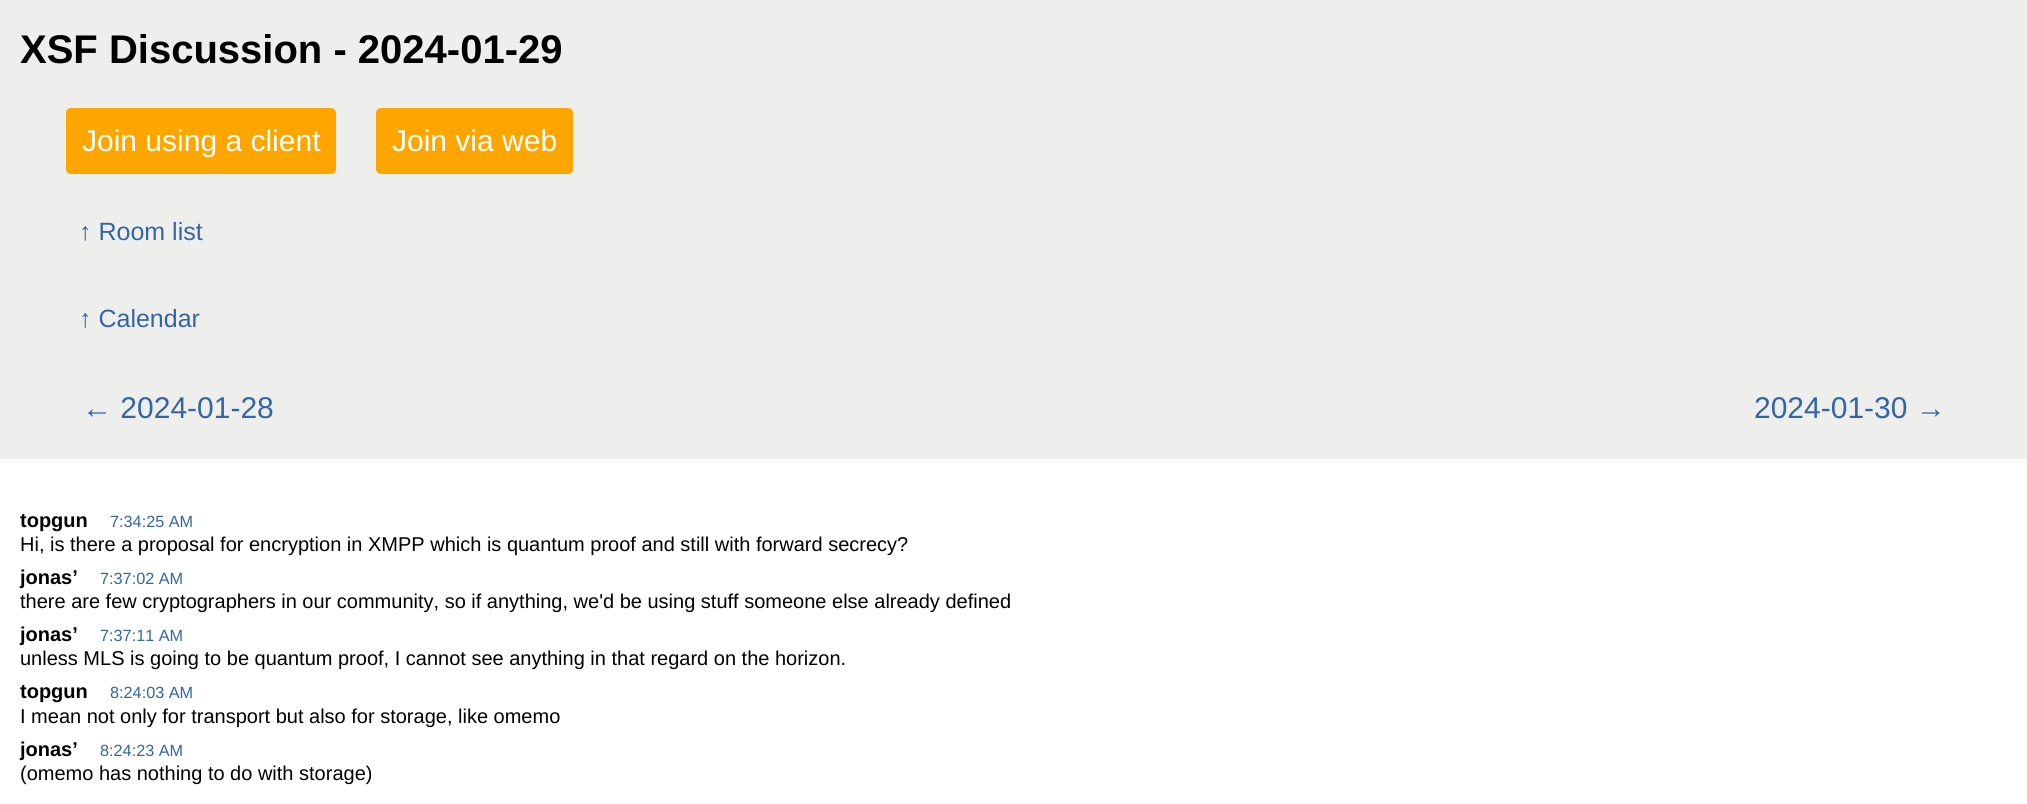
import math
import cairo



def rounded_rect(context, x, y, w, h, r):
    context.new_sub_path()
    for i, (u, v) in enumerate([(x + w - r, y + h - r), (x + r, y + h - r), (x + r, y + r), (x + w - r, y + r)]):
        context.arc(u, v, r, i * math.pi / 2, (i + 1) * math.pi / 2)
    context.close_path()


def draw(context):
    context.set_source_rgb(238 / 255, 238 / 255, 236 / 255)
    context.paint()
    context.set_source_rgb(1, 165 / 255, 0)
    rounded_rect(context, 66, 108, 270, 66, 5)
    context.fill()
    rounded_rect(context, 376, 108, 197, 66, 5)
    context.fill()
    context.set_source_rgb(1, 1, 1)
    context.rectangle(0, 459, 2027, 345)
    context.fill()
    context.select_font_face("Liberation Sans", cairo.FontSlant.NORMAL, cairo.FontWeight.BOLD)
    context.set_font_size(40)
    context.set_source_rgb(0, 0, 0)
    context.move_to(20, 63)
    context.show_text("XSF Discussion - 2024-01-29")
    context.select_font_face("Liberation Sans")
    context.set_font_size(30)
    context.set_source_rgb(1, 1, 1)
    context.move_to(82, 151)
    context.show_text("Join using a client")
    context.move_to(392, 151)
    context.show_text("Join via web")
    context.set_font_size(25)
    context.set_source_rgb(52 / 255, 101 / 255, 164 / 255)
    context.move_to(79, 240)
    context.show_text("↑ Room list")
    context.move_to(79, 327)
    context.show_text("↑ Calendar")
    context.set_font_size(30)
    context.move_to(82, 418)
    context.show_text("← 2024-01-28")
    context.move_to(1754, 418)
    context.show_text("2024-01-30 →")
    context.select_font_face("Liberation Sans", cairo.FontSlant.NORMAL, cairo.FontWeight.BOLD)
    context.set_font_size(20)
    context.set_source_rgb(0, 0, 0)
    context.move_to(20, 527)
    context.show_text("topgun")
    context.select_font_face("Liberation Sans")
    context.set_font_size(16.25)
    context.set_source_rgb(52 / 255, 101 / 255, 164 / 255)
    context.move_to(110, 527)
    context.show_text("7:34:25 AM")
    context.set_font_size(20)
    context.set_source_rgb(0, 0, 0)
    context.move_to(20, 551)
    context.show_text("Hi, is there a proposal for encryption in XMPP which is quantum proof and still with forward secrecy?")
    context.select_font_face("Liberation Sans", cairo.FontSlant.NORMAL, cairo.FontWeight.BOLD)
    context.move_to(20, 584)
    context.show_text("jonas’")
    context.select_font_face("Liberation Sans")
    context.set_font_size(16.25)
    context.set_source_rgb(52 / 255, 101 / 255, 164 / 255)
    context.move_to(100, 584)
    context.show_text("7:37:02 AM")
    context.set_font_size(20)
    context.set_source_rgb(0, 0, 0)
    context.move_to(20, 608)
    context.show_text("there are few cryptographers in our community, so if anything, we'd be using stuff someone else already defined")
    context.select_font_face("Liberation Sans", cairo.FontSlant.NORMAL, cairo.FontWeight.BOLD)
    context.move_to(20, 641)
    context.show_text("jonas’")
    context.select_font_face("Liberation Sans")
    context.set_font_size(16.25)
    context.set_source_rgb(52 / 255, 101 / 255, 164 / 255)
    context.move_to(100, 641)
    context.show_text("7:37:11 AM")
    context.set_font_size(20)
    context.set_source_rgb(0, 0, 0)
    context.move_to(20, 665)
    context.show_text("unless MLS is going to be quantum proof, I cannot see anything in that regard on the horizon.")
    context.select_font_face("Liberation Sans", cairo.FontSlant.NORMAL, cairo.FontWeight.BOLD)
    context.move_to(20, 698)
    context.show_text("topgun")
    context.select_font_face("Liberation Sans")
    context.set_font_size(16.25)
    context.set_source_rgb(52 / 255, 101 / 255, 164 / 255)
    context.move_to(110, 698)
    context.show_text("8:24:03 AM")
    context.set_font_size(20)
    context.set_source_rgb(0, 0, 0)
    context.move_to(20, 723)
    context.show_text("I mean not only for transport but also for storage, like omemo")
    context.select_font_face("Liberation Sans", cairo.FontSlant.NORMAL, cairo.FontWeight.BOLD)
    context.move_to(20, 756)
    context.show_text("jonas’")
    context.select_font_face("Liberation Sans")
    context.set_font_size(16.25)
    context.set_source_rgb(52 / 255, 101 / 255, 164 / 255)
    context.move_to(100, 756)
    context.show_text("8:24:23 AM")
    context.set_font_size(20)
    context.set_source_rgb(0, 0, 0)
    context.move_to(20, 780)
    context.show_text("(omemo has nothing to do with storage)")


surface = cairo.ImageSurface(cairo.Format.RGB24, 2027, 804)
context = cairo.Context(surface)
options = cairo.FontOptions()
options.set_hint_metrics(cairo.HintMetrics.OFF)
options.set_hint_style(cairo.HintStyle.NONE)
context.set_font_options(options)
context.set_miter_limit(4)
draw(context)
surface.write_to_png("out.png")
